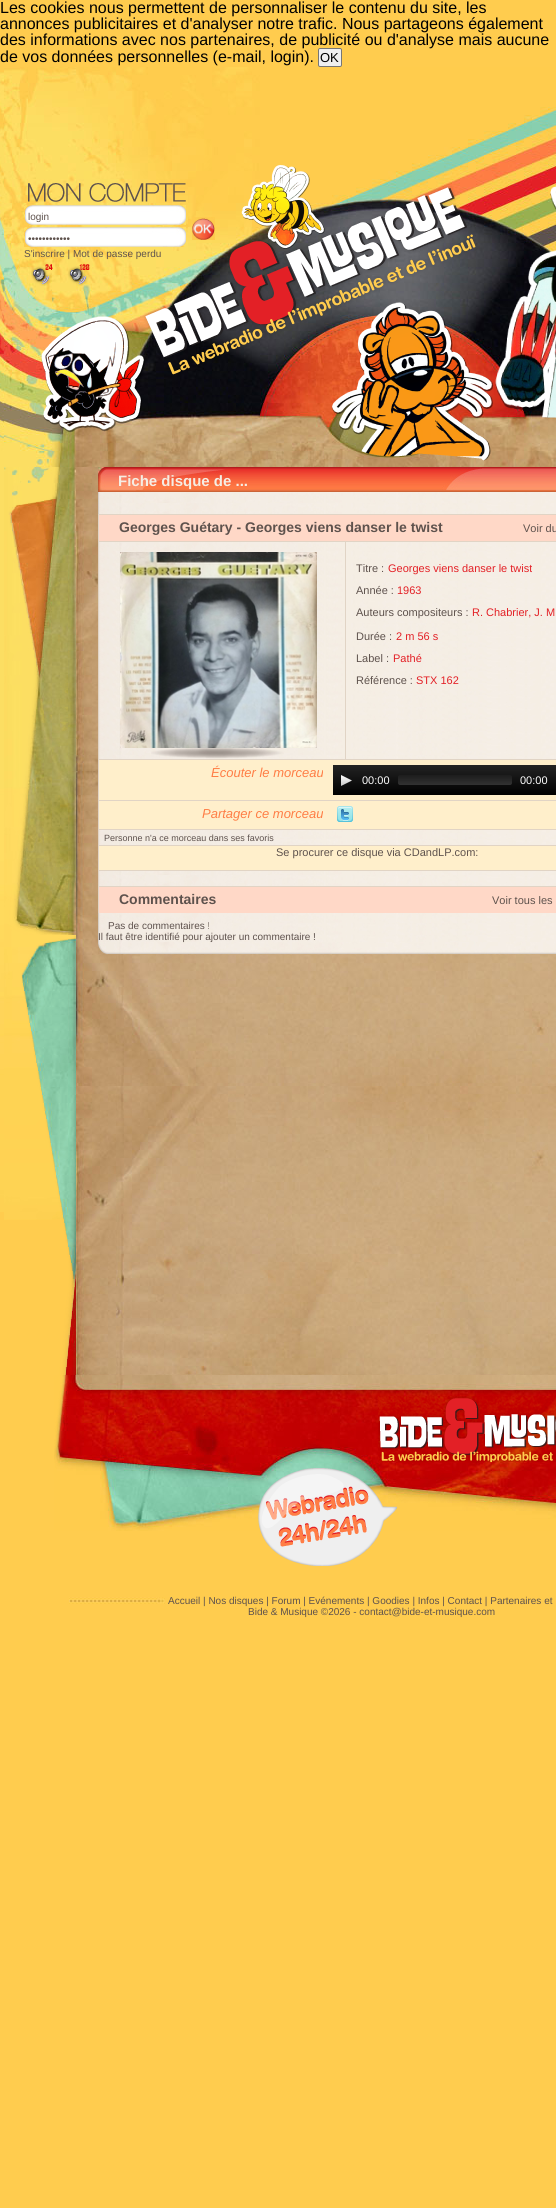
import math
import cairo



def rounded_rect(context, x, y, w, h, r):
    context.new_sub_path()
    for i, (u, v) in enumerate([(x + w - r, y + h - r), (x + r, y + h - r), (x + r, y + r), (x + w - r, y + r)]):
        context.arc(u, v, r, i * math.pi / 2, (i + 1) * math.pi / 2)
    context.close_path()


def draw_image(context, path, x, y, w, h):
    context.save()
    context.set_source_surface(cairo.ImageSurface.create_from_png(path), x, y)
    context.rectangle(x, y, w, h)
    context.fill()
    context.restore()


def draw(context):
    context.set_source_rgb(1, 204 / 255, 78 / 255)
    context.paint()
    draw_image(context, "images/1.png", 0, 72, 4, 1140)
    draw_image(context, "images/2.png", 4, 67, 552, 400)
    draw_image(context, "images/3.png", 41, 165, 515, 296)
    draw_image(context, "images/4.png", 28, 183, 158, 19)
    draw_image(context, "images/5.png", 24, 205, 162, 20)
    draw_image(context, "images/5.png", 24, 227, 162, 20)
    draw_image(context, "images/6.png", 192, 217, 23, 23)
    draw_image(context, "images/7.png", 31, 264, 22, 22)
    draw_image(context, "images/8.png", 68, 264, 22, 22)
    draw_image(context, "images/9.png", 4, 467, 72, 753)
    draw_image(context, "images/10.png", 4, 467, 72, 468)
    draw_image(context, "images/11.png", 76, 467, 480, 908)
    draw_image(context, "images/12.png", 98, 492, 458, 450)
    draw_image(context, "images/13.png", 98, 467, 458, 25)
    context.set_source_rgb(1, 216 / 255, 199 / 255)
    context.rectangle(99, 515, 457, 26)
    context.fill()
    context.set_source_rgb(225 / 255, 212 / 255, 197 / 255)
    context.rectangle(98, 514, 458, 1)
    context.fill()
    context.rectangle(98, 514, 1, 27)
    context.fill()
    context.rectangle(98, 541, 458, 1)
    context.fill()
    context.rectangle(98, 541, 1, 218)
    context.fill()
    draw_image(context, "images/14.png", 151, 748, 133, 11)
    draw_image(context, "images/15.png", 120, 552, 197, 196)
    context.rectangle(345, 541, 1, 218)
    context.fill()
    context.set_source_rgb(1, 239 / 255, 203 / 255)
    context.rectangle(99, 760, 457, 40)
    context.fill()
    context.set_source_rgb(225 / 255, 212 / 255, 197 / 255)
    context.rectangle(98, 759, 458, 1)
    context.fill()
    context.rectangle(98, 759, 1, 41)
    context.fill()
    gradient = cairo.LinearGradient(483, 765, 483, 795)
    gradient.add_color_stop_rgba(0, 35 / 255, 35 / 255, 35 / 255, 1)
    gradient.add_color_stop_rgba(1, 0, 0, 0, 1)
    context.set_source(gradient)
    context.rectangle(333, 765, 223, 30)
    context.fill()
    draw_image(context, "images/16.png", 341, 775, 11, 11)
    gradient = cairo.LinearGradient(455, 775, 455, 785)
    gradient.add_color_stop_rgba(0, 30 / 255, 30 / 255, 30 / 255, 0.8)
    gradient.add_color_stop_rgba(1, 60 / 255, 60 / 255, 60 / 255, 0.8)
    context.set_source(gradient)
    rounded_rect(context, 398, 775, 114, 10, 2)
    context.fill()
    context.set_source_rgb(1, 239 / 255, 203 / 255)
    context.rectangle(99, 801, 457, 28)
    context.fill()
    context.set_source_rgb(225 / 255, 212 / 255, 197 / 255)
    context.rectangle(98, 800, 458, 1)
    context.fill()
    context.rectangle(98, 800, 1, 29)
    context.fill()
    draw_image(context, "images/17.png", 337, 806, 16, 16)
    context.rectangle(98, 829, 458, 1)
    context.fill()
    context.rectangle(98, 829, 1, 16)
    context.fill()
    context.set_source_rgb(1, 239 / 255, 203 / 255)
    context.rectangle(99, 846, 457, 24)
    context.fill()
    context.set_source_rgb(225 / 255, 212 / 255, 197 / 255)
    context.rectangle(98, 845, 458, 1)
    context.fill()
    context.rectangle(98, 845, 1, 25)
    context.fill()
    context.rectangle(98, 870, 458, 1)
    context.fill()
    context.rectangle(98, 870, 1, 16)
    context.fill()
    context.set_source_rgb(1, 216 / 255, 199 / 255)
    context.rectangle(99, 887, 457, 26)
    context.fill()
    context.set_source_rgb(225 / 255, 212 / 255, 197 / 255)
    context.rectangle(98, 886, 458, 1)
    context.fill()
    context.rectangle(98, 886, 1, 27)
    context.fill()
    draw_image(context, "images/18.png", 98, 942, 458, 12)
    draw_image(context, "images/19.png", 21, 935, 55, 440)
    draw_image(context, "images/20.png", 54, 1375, 502, 156)
    draw_image(context, "images/21.png", 378, 1396, 178, 66)
    draw_image(context, "images/22.png", 258, 1468, 139, 98)
    draw_image(context, "images/23.png", 69, 1597, 96, 7)
    context.select_font_face("Liberation Sans")
    context.set_font_size(16)
    context.set_source_rgb(0, 0, 0)
    context.move_to(0, 13)
    context.show_text("Les cookies nous permettent de personnaliser le contenu du site, les")
    context.move_to(0, 29)
    context.show_text("annonces publicitaires et d'analyser notre trafic. Nous partageons également")
    context.move_to(0, 45)
    context.show_text("des informations avec nos partenaires, de publicité ou d'analyse mais aucune")
    context.move_to(0, 62)
    context.show_text("de vos données personnelles (e-mail, login).")
    context.set_source_rgb(239 / 255, 239 / 255, 239 / 255)
    rounded_rect(context, 318.5, 48.5, 23, 18, 1.5)
    context.fill_preserve()
    context.set_source_rgb(118 / 255, 118 / 255, 118 / 255)
    context.set_line_width(1)
    context.stroke()
    context.set_font_size(13)
    context.set_source_rgb(0, 0, 0)
    context.move_to(320, 62)
    context.show_text("OK")
    context.set_font_size(10)
    context.set_source_rgb(94 / 255, 82 / 255, 77 / 255)
    context.move_to(28, 220)
    context.show_text("login")
    context.move_to(28, 242)
    context.show_text("••••••••••••")
    context.move_to(24, 257)
    context.show_text("S'inscrire | Mot de passe perdu")
    context.select_font_face("Liberation Sans", cairo.FontSlant.NORMAL, cairo.FontWeight.BOLD)
    context.set_font_size(15)
    context.set_source_rgb(245 / 255, 238 / 255, 228 / 255)
    context.move_to(118, 486)
    context.show_text("Fiche disque de ...")
    context.set_font_size(14)
    context.set_source_rgb(94 / 255, 82 / 255, 77 / 255)
    context.move_to(119, 532)
    context.show_text("Georges Guétary - Georges viens danser le twist")
    context.select_font_face("Liberation Sans")
    context.set_font_size(11)
    context.move_to(523, 532)
    context.show_text("Voir du")
    context.move_to(356, 572)
    context.show_text("Titre :")
    context.set_source_rgb(227 / 255, 32 / 255, 38 / 255)
    context.move_to(388, 572)
    context.show_text("Georges viens danser le twist")
    context.set_source_rgb(94 / 255, 82 / 255, 77 / 255)
    context.move_to(356, 594)
    context.show_text("Année :")
    context.set_source_rgb(227 / 255, 32 / 255, 38 / 255)
    context.move_to(397, 594)
    context.show_text("1963")
    context.set_source_rgb(94 / 255, 82 / 255, 77 / 255)
    context.move_to(356, 616)
    context.show_text("Auteurs compositeurs :")
    context.set_source_rgb(227 / 255, 32 / 255, 38 / 255)
    context.move_to(472, 616)
    context.show_text("R. Chabrier, J. M")
    context.set_source_rgb(94 / 255, 82 / 255, 77 / 255)
    context.move_to(356, 640)
    context.show_text("Durée :")
    context.set_source_rgb(227 / 255, 32 / 255, 38 / 255)
    context.move_to(396, 640)
    context.show_text("2 m 56 s")
    context.set_source_rgb(94 / 255, 82 / 255, 77 / 255)
    context.move_to(356, 662)
    context.show_text("Label :")
    context.set_source_rgb(227 / 255, 32 / 255, 38 / 255)
    context.move_to(393, 662)
    context.show_text("Pathé")
    context.set_source_rgb(94 / 255, 82 / 255, 77 / 255)
    context.move_to(356, 684)
    context.show_text("Référence :")
    context.set_source_rgb(227 / 255, 32 / 255, 38 / 255)
    context.move_to(416, 684)
    context.show_text("STX 162")
    context.select_font_face("Liberation Sans", cairo.FontSlant.ITALIC)
    context.set_font_size(13)
    context.set_source_rgb(1, 125 / 255, 69 / 255)
    context.move_to(211, 777)
    context.show_text("Écouter le morceau")
    context.select_font_face("Liberation Sans")
    context.set_font_size(11)
    context.set_source_rgb(1, 1, 1)
    context.move_to(362, 784)
    context.show_text("00:00")
    context.move_to(520, 784)
    context.show_text("00:00")
    context.select_font_face("Liberation Sans", cairo.FontSlant.ITALIC)
    context.set_font_size(13)
    context.set_source_rgb(1, 125 / 255, 69 / 255)
    context.move_to(202, 818)
    context.show_text("Partager ce morceau")
    context.select_font_face("Liberation Sans")
    context.set_font_size(9)
    context.set_source_rgb(94 / 255, 82 / 255, 77 / 255)
    context.move_to(104, 841)
    context.show_text("Personne n'a ce morceau dans ses favoris")
    context.set_font_size(11)
    context.move_to(276, 856)
    context.show_text("Se procurer ce disque via CDandLP.com:")
    context.select_font_face("Liberation Sans", cairo.FontSlant.NORMAL, cairo.FontWeight.BOLD)
    context.set_font_size(14)
    context.move_to(119, 904)
    context.show_text("Commentaires")
    context.select_font_face("Liberation Sans")
    context.set_font_size(11)
    context.move_to(492, 904)
    context.show_text("Voir tous les")
    context.set_font_size(10)
    context.move_to(108, 929)
    context.show_text("Pas de commentaires !")
    context.move_to(98, 940)
    context.show_text("Il faut être identifié pour ajouter un commentaire !")
    context.move_to(168, 1604)
    context.show_text("Accueil | Nos disques | Forum | Evénements | Goodies | Infos | Contact | Partenaires et")
    context.move_to(248, 1615)
    context.show_text("Bide & Musique ©2026 - contact@bide-et-musique.com")


surface = cairo.ImageSurface(cairo.Format.RGB24, 556, 2208)
context = cairo.Context(surface)
options = cairo.FontOptions()
options.set_hint_metrics(cairo.HintMetrics.OFF)
options.set_hint_style(cairo.HintStyle.NONE)
context.set_font_options(options)
context.set_miter_limit(4)
draw(context)
surface.write_to_png("out.png")
